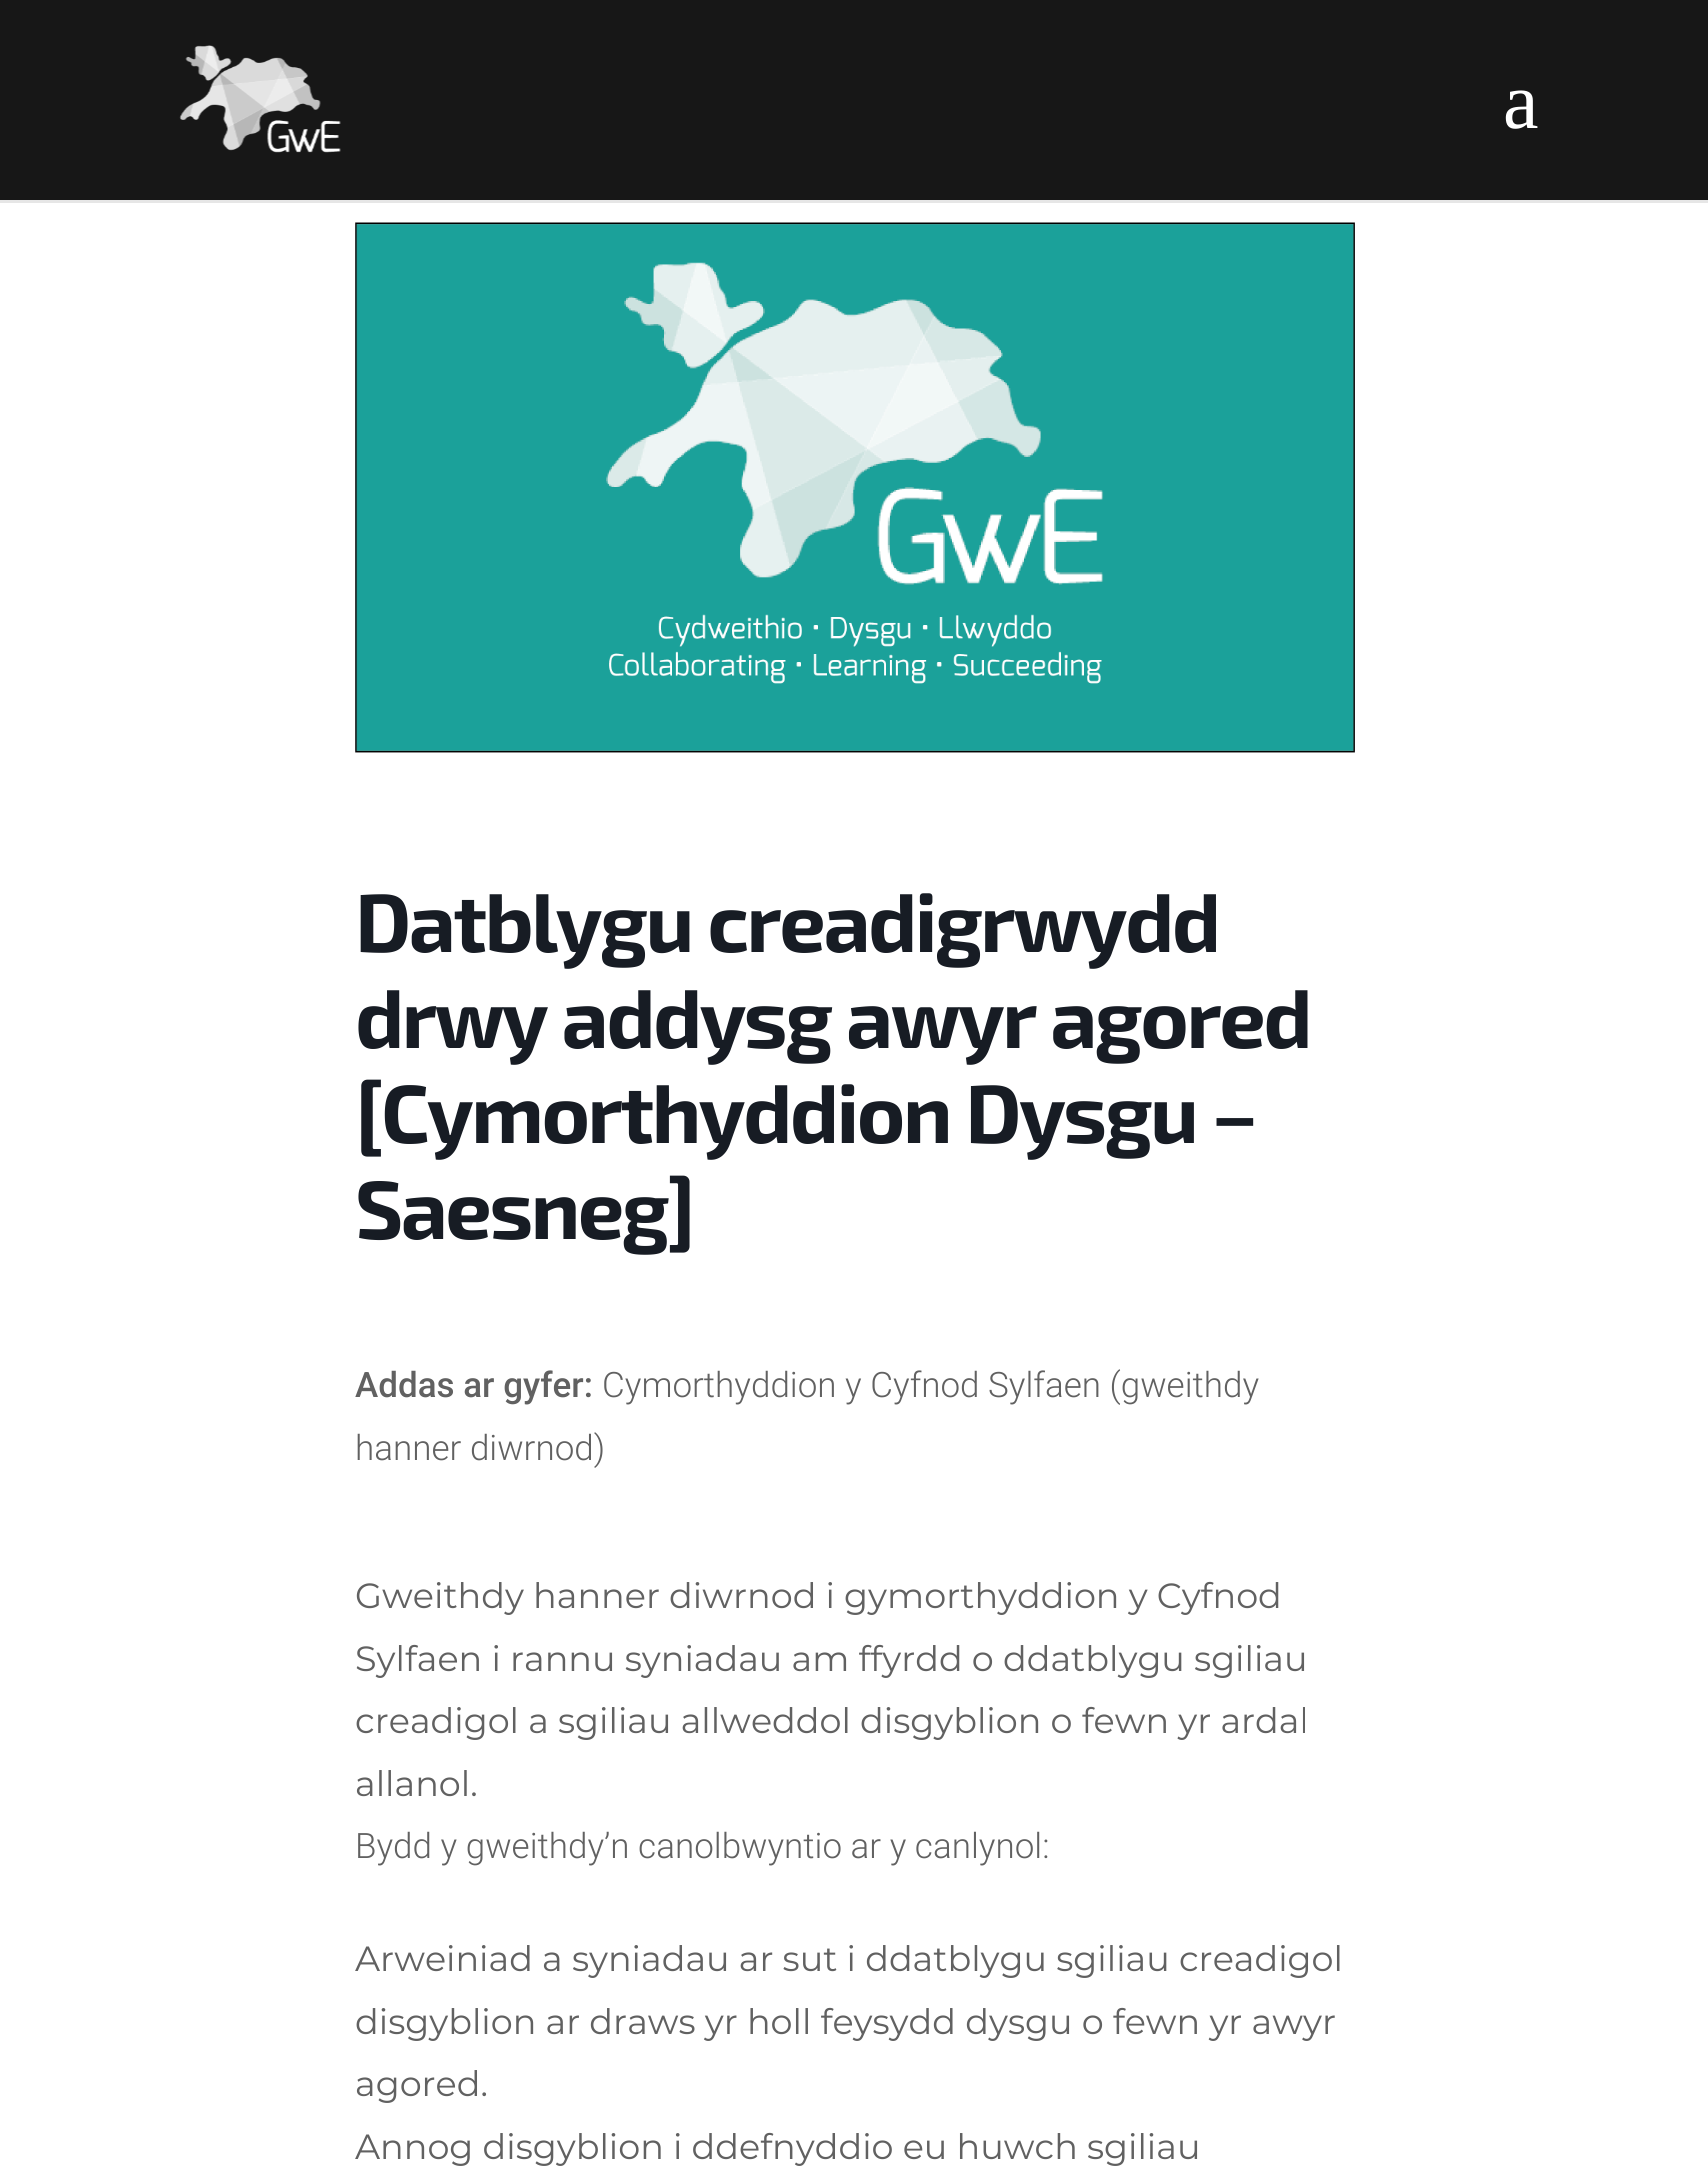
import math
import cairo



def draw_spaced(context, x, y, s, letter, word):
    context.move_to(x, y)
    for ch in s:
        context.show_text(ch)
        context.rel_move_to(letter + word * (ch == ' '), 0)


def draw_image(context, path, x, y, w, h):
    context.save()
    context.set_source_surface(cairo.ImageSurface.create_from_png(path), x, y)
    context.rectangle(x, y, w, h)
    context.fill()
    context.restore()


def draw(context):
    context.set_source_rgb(1, 1, 1)
    context.paint()
    context.set_source_rgb(230 / 255, 230 / 255, 230 / 255)
    context.rectangle(0, 200, 1708, 3)
    context.fill()
    context.set_source_rgb(23 / 255, 23 / 255, 23 / 255)
    context.rectangle(0, 0, 1708, 200)
    context.fill()
    draw_image(context, "images/1.png", 179, 45, 162, 108)
    draw_image(context, "images/2.png", 355, 222, 1000, 531)
    context.select_font_face("Liberation Serif")
    context.set_font_size(80)
    context.set_source_rgb(1, 1, 1)
    context.move_to(1503, 128)
    context.show_text("a")
    context.select_font_face("Exo 2", cairo.FontSlant.NORMAL, cairo.FontWeight.BOLD)
    context.set_font_size(82.5)
    context.set_source_rgb(23 / 255, 28 / 255, 36 / 255)
    draw_spaced(context, 355, 952, "Datblygu creadigrwydd", -2.5, 0)
    draw_spaced(context, 355, 1048, "drwy addysg awyr agored", -2.5, 0)
    draw_spaced(context, 355, 1143, "[Cymorthyddion Dysgu –", -2.5, 0)
    draw_spaced(context, 355, 1239, "Saesneg]", -2.5, 0)
    context.select_font_face("Roboto Medium")
    context.set_font_size(35)
    context.set_source_rgb(97 / 255, 97 / 255, 97 / 255)
    context.move_to(355, 1397)
    context.show_text("Addas ar gyfer:")
    context.select_font_face("Roboto Light")
    context.move_to(602, 1397)
    context.show_text("Cymorthyddion y Cyfnod Sylfaen (gweithdy")
    context.move_to(355, 1460)
    context.show_text("hanner diwrnod)")
    context.select_font_face("Montserrat")
    context.move_to(355, 1608)
    context.show_text("Gweithdy hanner diwrnod i gymorthyddion y Cyfnod")
    context.move_to(355, 1671)
    context.show_text("Sylfaen i rannu syniadau am ffyrdd o ddatblygu sgiliau")
    context.move_to(355, 1733)
    context.show_text("creadigol a sgiliau allweddol disgyblion o fewn yr ardal")
    context.move_to(355, 1796)
    context.show_text("allanol.")
    context.select_font_face("Roboto Light")
    context.move_to(355, 1858)
    context.show_text("Bydd y gweithdy’n canolbwyntio ar y canlynol:")
    context.select_font_face("Montserrat")
    context.move_to(355, 1971)
    context.show_text("Arweiniad a syniadau ar sut i ddatblygu sgiliau creadigol")
    context.move_to(355, 2034)
    context.show_text("disgyblion ar draws yr holl feysydd dysgu o fewn yr awyr")
    context.move_to(355, 2096)
    context.show_text("agored.")
    context.move_to(355, 2159)
    context.show_text("Annog disgyblion i ddefnyddio eu huwch sgiliau")


surface = cairo.ImageSurface(cairo.Format.RGB24, 1708, 2183)
context = cairo.Context(surface)
options = cairo.FontOptions()
options.set_hint_metrics(cairo.HintMetrics.OFF)
options.set_hint_style(cairo.HintStyle.NONE)
context.set_font_options(options)
context.set_miter_limit(4)
draw(context)
surface.write_to_png("out.png")
